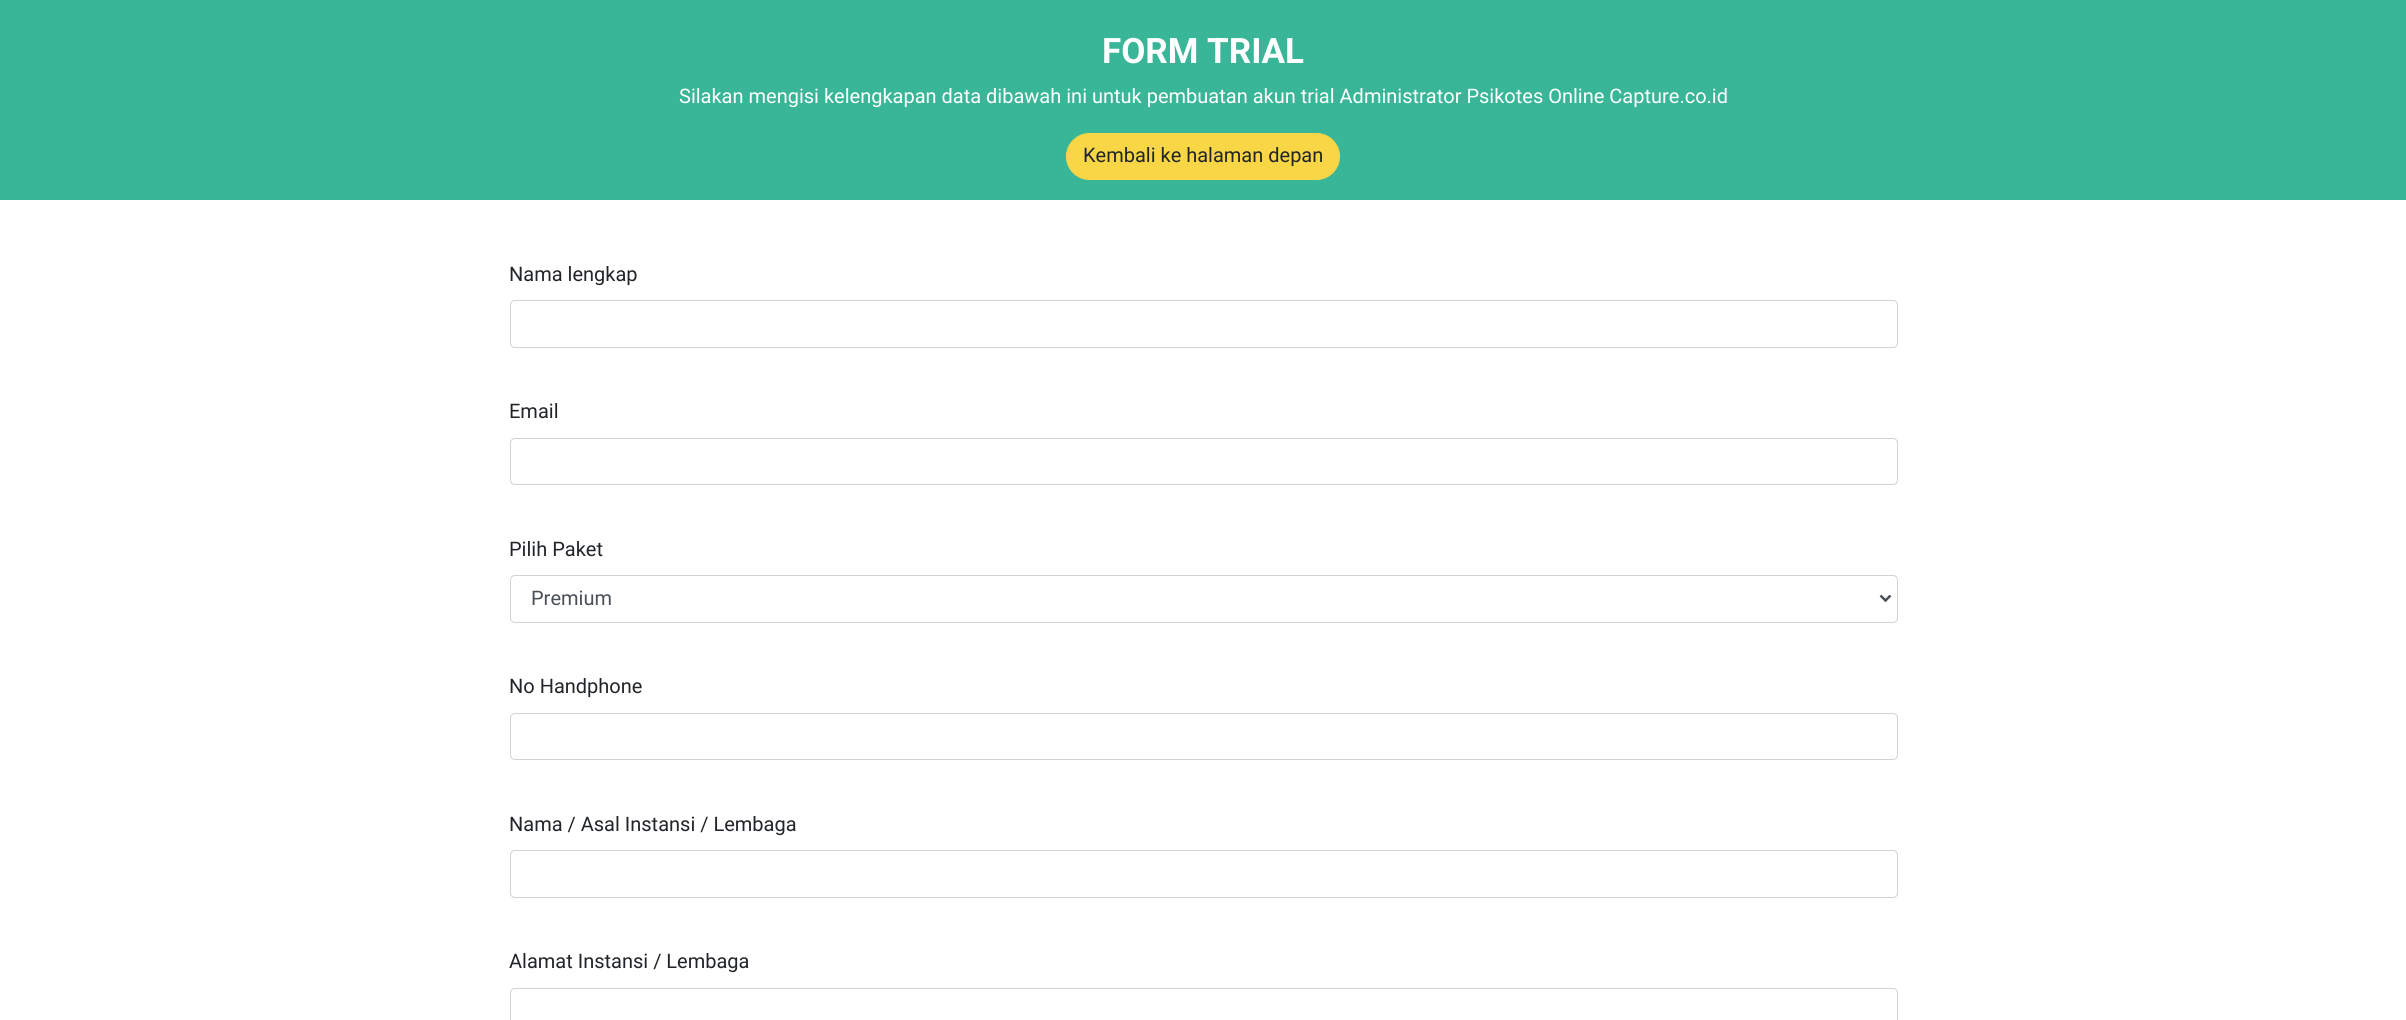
import math
import cairo



def rounded_rect(context, x, y, w, h, r):
    context.new_sub_path()
    for i, (u, v) in enumerate([(x + w - r, y + h - r), (x + r, y + h - r), (x + r, y + r), (x + w - r, y + r)]):
        context.arc(u, v, r, i * math.pi / 2, (i + 1) * math.pi / 2)
    context.close_path()


def draw(context):
    context.set_source_rgb(1, 1, 1)
    context.paint()
    context.set_source_rgb(57 / 255, 181 / 255, 151 / 255)
    context.rectangle(0, 0, 2406, 200)
    context.fill()
    context.set_source_rgb(248 / 255, 214 / 255, 69 / 255)
    rounded_rect(context, 1066.5, 133.5, 273, 46, 23)
    context.fill_preserve()
    context.set_line_width(1)
    context.stroke()
    rounded_rect(context, 510.5, 300.5, 1387, 47, 4.5)
    context.set_source_rgb(206 / 255, 212 / 255, 218 / 255)
    context.stroke()
    rounded_rect(context, 510.5, 438.5, 1387, 46, 4.5)
    context.stroke()
    rounded_rect(context, 510.5, 575.5, 1387, 47, 4.5)
    context.stroke()
    context.new_path()
    context.move_to(1880.5, 595.5)
    context.line_to(1885.5, 600.5)
    context.line_to(1890.5, 595.5)
    context.set_source_rgb(73 / 255, 80 / 255, 87 / 255)
    context.set_line_width(2.5)
    context.stroke()
    rounded_rect(context, 510.5, 713.5, 1387, 46, 4.5)
    context.set_source_rgb(206 / 255, 212 / 255, 218 / 255)
    context.set_line_width(1)
    context.stroke()
    rounded_rect(context, 510.5, 850.5, 1387, 47, 4.5)
    context.stroke()
    rounded_rect(context, 510.5, 988.5, 1387, 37, 4.5)
    context.stroke()
    context.select_font_face("Roboto", cairo.FontSlant.NORMAL, cairo.FontWeight.BOLD)
    context.set_font_size(35)
    context.set_source_rgb(1, 1, 1)
    context.move_to(1102, 63)
    context.show_text("FORM TRIAL")
    context.select_font_face("Roboto")
    context.set_font_size(20)
    context.move_to(679, 103)
    context.show_text("Silakan mengisi kelengkapan data dibawah ini untuk pembuatan akun trial Administrator Psikotes Online Capture.co.id")
    context.set_source_rgb(33 / 255, 37 / 255, 41 / 255)
    context.move_to(1083, 162)
    context.show_text("Kembali ke halaman depan")
    context.move_to(509, 281)
    context.show_text("Nama lengkap")
    context.move_to(509, 418)
    context.show_text("Email")
    context.move_to(509, 556)
    context.show_text("Pilih Paket")
    context.set_source_rgb(73 / 255, 80 / 255, 87 / 255)
    context.move_to(531, 605)
    context.show_text("Premium")
    context.set_source_rgb(33 / 255, 37 / 255, 41 / 255)
    context.move_to(509, 693)
    context.show_text("No Handphone")
    context.move_to(509, 831)
    context.show_text("Nama / Asal Instansi / Lembaga")
    context.move_to(509, 968)
    context.show_text("Alamat Instansi / Lembaga")


surface = cairo.ImageSurface(cairo.Format.RGB24, 2406, 1020)
context = cairo.Context(surface)
options = cairo.FontOptions()
options.set_hint_metrics(cairo.HintMetrics.OFF)
options.set_hint_style(cairo.HintStyle.NONE)
context.set_font_options(options)
context.set_miter_limit(4)
draw(context)
surface.write_to_png("out.png")
